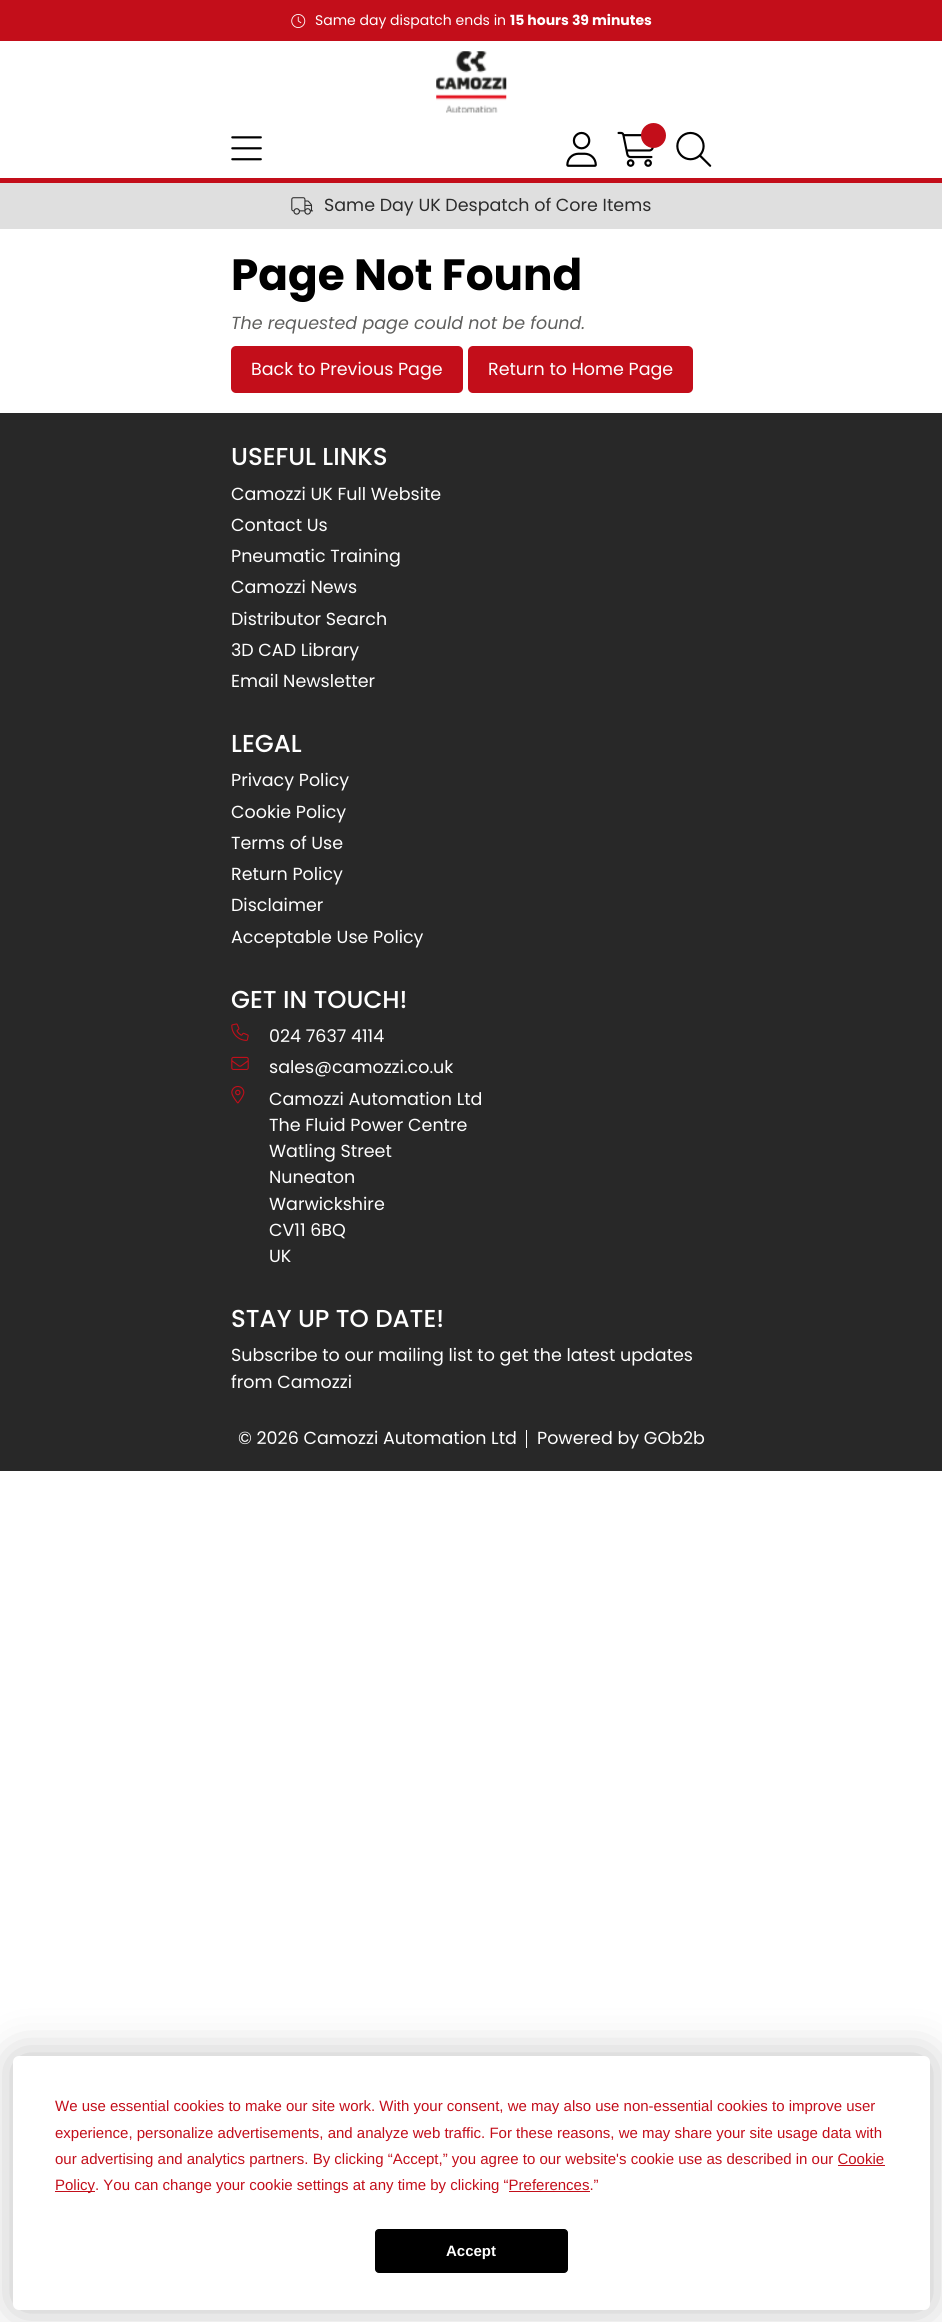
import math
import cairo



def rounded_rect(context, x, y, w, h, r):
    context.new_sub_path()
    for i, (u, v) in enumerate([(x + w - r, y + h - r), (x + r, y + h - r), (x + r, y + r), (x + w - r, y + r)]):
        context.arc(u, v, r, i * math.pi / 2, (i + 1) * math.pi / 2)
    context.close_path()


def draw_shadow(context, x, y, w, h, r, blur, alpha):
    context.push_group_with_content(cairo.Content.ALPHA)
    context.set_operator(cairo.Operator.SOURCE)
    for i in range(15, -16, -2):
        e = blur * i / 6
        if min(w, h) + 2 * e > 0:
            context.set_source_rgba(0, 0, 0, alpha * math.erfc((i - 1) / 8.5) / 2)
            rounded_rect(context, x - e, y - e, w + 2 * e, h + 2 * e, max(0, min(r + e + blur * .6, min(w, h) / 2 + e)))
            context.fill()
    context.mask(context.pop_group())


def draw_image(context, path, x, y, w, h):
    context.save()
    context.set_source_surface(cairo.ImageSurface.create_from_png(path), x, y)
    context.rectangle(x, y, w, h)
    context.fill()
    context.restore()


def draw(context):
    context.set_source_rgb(1, 1, 1)
    context.paint()
    context.set_source_rgb(195 / 255, 14 / 255, 26 / 255)
    context.rectangle(0, 0, 942, 41)
    context.fill()
    draw_image(context, "images/1.png", 291, 14, 15, 14)
    context.rectangle(0, 178, 942, 5)
    context.fill()
    draw_image(context, "images/2.png", 436, 51, 71, 62)
    draw_image(context, "images/3.png", 231, 136, 31, 25)
    draw_image(context, "images/4.png", 566, 131, 31, 36)
    draw_image(context, "images/5.png", 617, 131, 37, 36)
    context.arc(653.5, 135.5, 12.5, 0, 2 * math.pi)
    context.fill()
    draw_image(context, "images/6.png", 676, 131, 36, 36)
    context.set_source_rgb(223 / 255, 223 / 255, 223 / 255)
    context.rectangle(0, 183, 942, 46)
    context.fill()
    draw_image(context, "images/7.png", 291, 197, 23, 18)
    context.set_source_rgb(195 / 255, 14 / 255, 26 / 255)
    rounded_rect(context, 231, 346, 232, 47, 5)
    context.fill()
    rounded_rect(context, 468, 346, 225, 47, 5)
    context.fill()
    context.set_source_rgb(40 / 255, 40 / 255, 40 / 255)
    context.rectangle(0, 413, 942, 1058)
    context.fill()
    draw_image(context, "images/8.png", 231, 1023, 18, 18)
    draw_image(context, "images/9.png", 231, 1056, 18, 14)
    draw_image(context, "images/10.png", 231, 1085, 14, 19)
    context.set_source_rgb(1, 1, 1)
    context.rectangle(526, 1430, 1, 18)
    context.fill()
    context.set_source_rgb(0, 0, 0)
    draw_shadow(context, 13, 2056, 917, 254, 6, 22, 0.25)
    context.set_source_rgb(1, 1, 1)
    rounded_rect(context, 13, 2056, 917, 254, 6)
    context.fill()
    context.set_source_rgb(195 / 255, 14 / 255, 26 / 255)
    context.rectangle(838, 2165, 47, 1)
    context.fill()
    context.rectangle(55, 2191, 40, 1)
    context.fill()
    context.rectangle(509, 2191, 81, 1)
    context.fill()
    context.set_source_rgb(0, 0, 0)
    rounded_rect(context, 375.5, 2229.5, 192, 43, 3.5)
    context.fill_preserve()
    context.set_line_width(1)
    context.stroke()
    context.select_font_face("Poppins")
    context.set_font_size(14)
    context.set_source_rgb(1, 1, 1)
    context.move_to(315, 25)
    context.show_text("Same day dispatch ends in")
    context.select_font_face("Poppins", cairo.FontSlant.NORMAL, cairo.FontWeight.BOLD)
    context.move_to(510, 25)
    context.show_text("15 hours 39 minutes")
    context.select_font_face("Poppins")
    context.set_font_size(17.5)
    context.set_source_rgb(44 / 255, 44 / 255, 44 / 255)
    context.move_to(324, 211)
    context.show_text("Same Day UK Despatch of Core Items")
    context.select_font_face("Poppins", cairo.FontSlant.NORMAL, cairo.FontWeight.BOLD)
    context.set_font_size(43.75)
    context.set_source_rgb(0, 0, 0)
    context.move_to(231, 290)
    context.show_text("Page Not Found")
    context.select_font_face("Poppins", cairo.FontSlant.ITALIC)
    context.set_font_size(17.5)
    context.set_source_rgb(95 / 255, 95 / 255, 93 / 255)
    context.move_to(231, 329)
    context.show_text("The requested page could not be found.")
    context.select_font_face("Poppins")
    context.set_source_rgb(1, 1, 1)
    context.move_to(251, 375)
    context.show_text("Back to Previous Page")
    context.move_to(488, 375)
    context.show_text("Return to Home Page")
    context.select_font_face("Poppins Medium")
    context.set_font_size(24.5)
    context.move_to(231, 465)
    context.show_text("USEFUL LINKS")
    context.select_font_face("Poppins")
    context.set_font_size(17.5)
    context.move_to(231, 500)
    context.show_text("Camozzi UK Full Website")
    context.move_to(231, 531)
    context.show_text("Contact Us")
    context.move_to(231, 562)
    context.show_text("Pneumatic Training")
    context.move_to(231, 593)
    context.show_text("Camozzi News")
    context.move_to(231, 625)
    context.show_text("Distributor Search")
    context.move_to(231, 656)
    context.show_text("3D CAD Library")
    context.move_to(231, 687)
    context.show_text("Email Newsletter")
    context.select_font_face("Poppins Medium")
    context.set_font_size(24.5)
    context.move_to(231, 752)
    context.show_text("LEGAL")
    context.select_font_face("Poppins")
    context.set_font_size(17.5)
    context.move_to(231, 786)
    context.show_text("Privacy Policy")
    context.move_to(231, 818)
    context.show_text("Cookie Policy")
    context.move_to(231, 849)
    context.show_text("Terms of Use")
    context.move_to(231, 880)
    context.show_text("Return Policy")
    context.move_to(231, 911)
    context.show_text("Disclaimer")
    context.move_to(231, 943)
    context.show_text("Acceptable Use Policy")
    context.select_font_face("Poppins Medium")
    context.set_font_size(24.5)
    context.move_to(231, 1008)
    context.show_text("GET IN TOUCH!")
    context.select_font_face("Poppins")
    context.set_font_size(17.5)
    context.move_to(269, 1042)
    context.show_text("024 7637 4114")
    context.move_to(269, 1073)
    context.show_text("sales@camozzi.co.uk")
    context.move_to(269, 1105)
    context.show_text("Camozzi Automation Ltd")
    context.move_to(269, 1131)
    context.show_text("The Fluid Power Centre")
    context.move_to(269, 1157)
    context.show_text("Watling Street")
    context.move_to(269, 1183)
    context.show_text("Nuneaton")
    context.move_to(269, 1210)
    context.show_text("Warwickshire")
    context.move_to(269, 1236)
    context.show_text("CV11 6BQ")
    context.move_to(269, 1262)
    context.show_text("UK")
    context.select_font_face("Poppins Medium")
    context.set_font_size(24.5)
    context.move_to(231, 1327)
    context.show_text("STAY UP TO DATE!")
    context.select_font_face("Poppins")
    context.set_font_size(17.5)
    context.move_to(231, 1361)
    context.show_text("Subscribe to our mailing list to get the latest updates")
    context.move_to(231, 1388)
    context.show_text("from Camozzi")
    context.move_to(238, 1444)
    context.show_text("© 2026 Camozzi Automation Ltd")
    context.move_to(537, 1444)
    context.show_text("Powered by GOb2b")
    context.select_font_face("Liberation Sans")
    context.set_font_size(15)
    context.set_source_rgb(195 / 255, 14 / 255, 26 / 255)
    context.move_to(55, 2111)
    context.show_text("We use essential cookies to make our site work. With your consent, we may also use non-essential cookies to improve user")
    context.move_to(55, 2138)
    context.show_text("experience, personalize advertisements, and analyze web traffic. For these reasons, we may share your site usage data with")
    context.move_to(55, 2164)
    context.show_text("our advertising and analytics partners. By clicking “Accept,” you agree to our website's cookie use as described in our Cookie")
    context.move_to(55, 2190)
    context.show_text("Policy. You can change your cookie settings at any time by clicking “Preferences.”")
    context.select_font_face("Liberation Sans", cairo.FontSlant.NORMAL, cairo.FontWeight.BOLD)
    context.set_source_rgb(1, 1, 1)
    context.move_to(446, 2256)
    context.show_text("Accept")


surface = cairo.ImageSurface(cairo.Format.RGB24, 942, 2322)
context = cairo.Context(surface)
options = cairo.FontOptions()
options.set_hint_metrics(cairo.HintMetrics.OFF)
options.set_hint_style(cairo.HintStyle.NONE)
context.set_font_options(options)
context.set_miter_limit(4)
draw(context)
surface.write_to_png("out.png")
